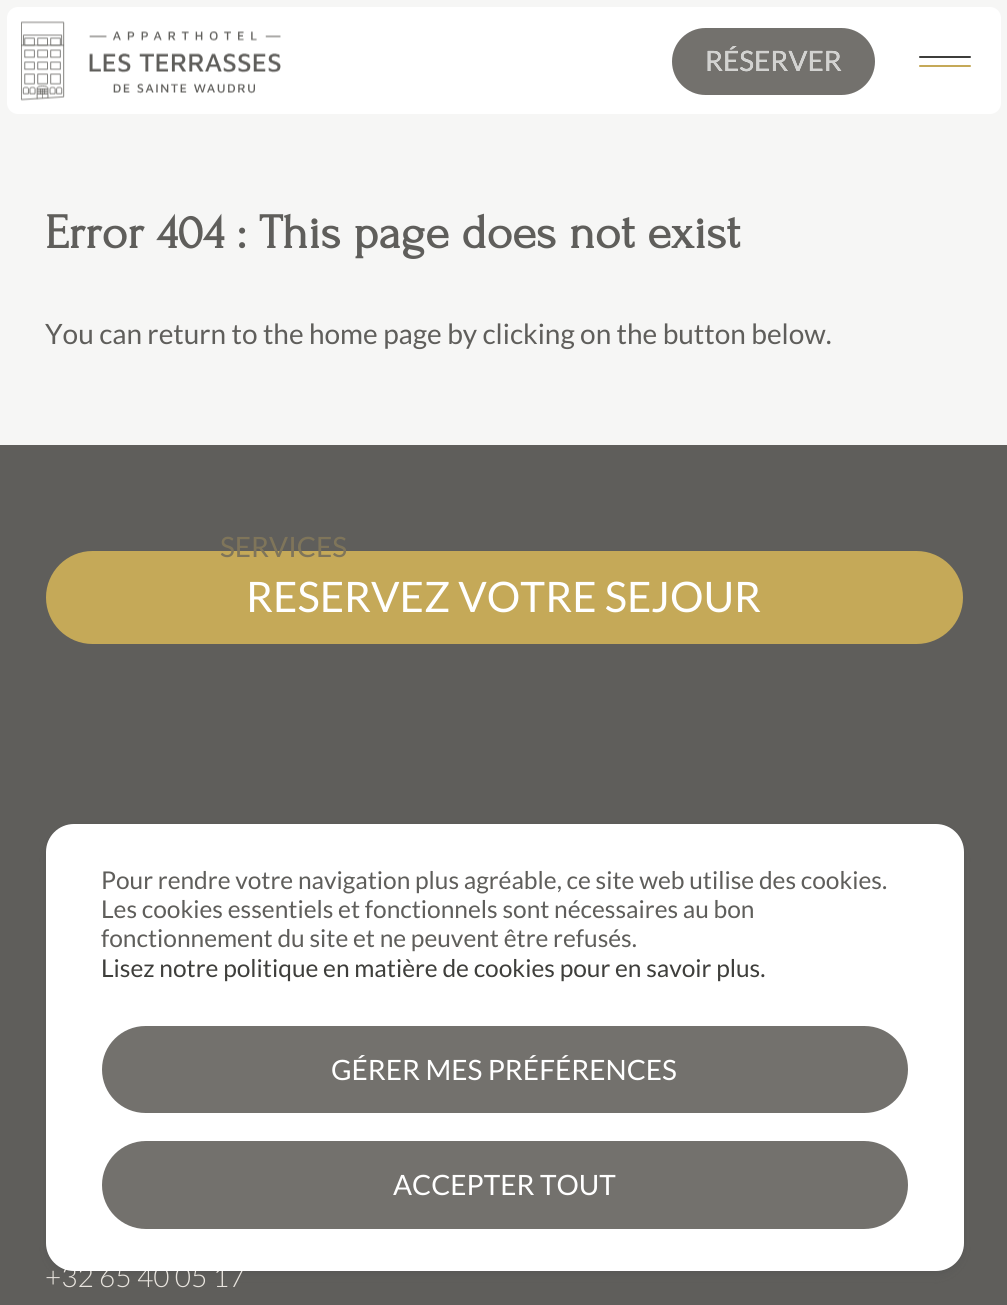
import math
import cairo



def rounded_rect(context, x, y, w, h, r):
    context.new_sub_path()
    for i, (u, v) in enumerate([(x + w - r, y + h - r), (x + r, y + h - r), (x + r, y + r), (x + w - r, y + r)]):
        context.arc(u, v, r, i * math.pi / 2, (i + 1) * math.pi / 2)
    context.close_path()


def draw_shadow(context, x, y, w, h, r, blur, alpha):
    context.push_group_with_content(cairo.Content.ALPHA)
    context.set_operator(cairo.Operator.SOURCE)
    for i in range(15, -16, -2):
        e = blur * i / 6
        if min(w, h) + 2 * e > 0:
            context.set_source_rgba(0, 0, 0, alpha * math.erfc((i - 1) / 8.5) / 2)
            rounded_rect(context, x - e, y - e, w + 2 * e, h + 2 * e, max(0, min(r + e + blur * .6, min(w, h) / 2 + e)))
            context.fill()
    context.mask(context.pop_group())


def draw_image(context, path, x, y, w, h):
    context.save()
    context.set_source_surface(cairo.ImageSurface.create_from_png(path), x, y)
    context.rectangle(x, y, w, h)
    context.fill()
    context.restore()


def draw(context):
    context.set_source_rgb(246 / 255, 246 / 255, 245 / 255)
    context.paint()
    context.set_source_rgb(1, 1, 1)
    rounded_rect(context, 7, 7, 994, 107, 11)
    context.fill()
    draw_image(context, "images/1.png", 21, 21, 260, 80)
    context.set_source_rgb(115 / 255, 113 / 255, 109 / 255)
    rounded_rect(context, 672, 28, 203, 67, 33.5)
    context.fill()
    context.set_source_rgb(62 / 255, 62 / 255, 59 / 255)
    rounded_rect(context, 919, 56, 52, 2, 1)
    context.fill()
    context.set_source_rgb(197 / 255, 169 / 255, 88 / 255)
    rounded_rect(context, 919, 65, 52, 2, 1)
    context.fill()
    context.set_source_rgb(95 / 255, 94 / 255, 91 / 255)
    context.rectangle(0, 445, 1007, 860)
    context.fill()
    context.set_source_rgb(197 / 255, 169 / 255, 88 / 255)
    rounded_rect(context, 47, 552, 915, 91, 45.5)
    context.fill_preserve()
    context.stroke()
    context.set_source_rgb(43 / 255, 50 / 255, 59 / 255)
    draw_shadow(context, 46, 824, 918, 447, 28, 2, 0.1)
    draw_shadow(context, 47, 833, 916, 443, 26, 5, 0.1)
    context.select_font_face("Lato")
    context.set_font_size(28)
    context.set_source_rgb(1, 1, 1)
    context.move_to(705, 71)
    context.show_text("RÉSERVER")
    context.set_source_rgb(210 / 255, 210 / 255, 208 / 255)
    context.move_to(705, 71)
    context.show_text("RÉSERVER")
    context.set_source_rgb(127 / 255, 117 / 255, 90 / 255)
    context.move_to(220, 557)
    context.show_text("SERVICES")
    context.select_font_face("Forum", cairo.FontSlant.NORMAL, cairo.FontWeight.BOLD)
    context.set_font_size(49)
    context.set_source_rgb(95 / 255, 94 / 255, 91 / 255)
    context.move_to(45, 248)
    context.show_text("Error 404 : This page does not exist")
    context.select_font_face("Lato")
    context.set_font_size(28)
    context.move_to(45, 344)
    context.show_text("You can return to the home page by clicking on the button below.")
    context.set_font_size(42)
    context.set_source_rgb(1, 1, 1)
    context.move_to(246, 612)
    context.show_text("RESERVEZ VOTRE SEJOUR")
    context.select_font_face("Lato Light")
    context.set_font_size(28)
    context.set_source_rgb(233 / 255, 229 / 255, 223 / 255)
    context.move_to(45, 1287)
    context.show_text("+32 65 40 05 17")
    context.set_source_rgb(1, 1, 1)
    rounded_rect(context, 46, 824, 918, 447, 28)
    context.fill()
    context.select_font_face("Lato")
    context.set_font_size(24.5)
    context.set_source_rgb(95 / 255, 94 / 255, 91 / 255)
    context.move_to(101, 889)
    context.show_text("Pour rendre votre navigation plus agréable, ce site web utilise des cookies.")
    context.move_to(101, 918)
    context.show_text("Les cookies essentiels et fonctionnels sont nécessaires au bon")
    context.move_to(101, 947)
    context.show_text("fonctionnement du site et ne peuvent être refusés.")
    context.set_source_rgb(62 / 255, 62 / 255, 59 / 255)
    context.move_to(101, 977)
    context.show_text("Lisez notre politique en matière de cookies pour en savoir plus.")
    context.set_source_rgb(115 / 255, 113 / 255, 109 / 255)
    rounded_rect(context, 103, 1027, 804, 85, 42.5)
    context.fill_preserve()
    context.stroke()
    context.set_font_size(28)
    context.set_source_rgb(1, 1, 1)
    context.move_to(331, 1080)
    context.show_text("GÉRER MES PRÉFÉRENCES")
    context.set_source_rgb(115 / 255, 113 / 255, 109 / 255)
    rounded_rect(context, 103, 1142, 804, 86, 43)
    context.fill_preserve()
    context.stroke()
    context.set_source_rgb(1, 1, 1)
    context.move_to(393, 1195)
    context.show_text("ACCEPTER TOUT")


surface = cairo.ImageSurface(cairo.Format.RGB24, 1007, 1305)
context = cairo.Context(surface)
options = cairo.FontOptions()
options.set_hint_metrics(cairo.HintMetrics.OFF)
options.set_hint_style(cairo.HintStyle.NONE)
context.set_font_options(options)
context.set_miter_limit(4)
draw(context)
surface.write_to_png("out.png")
